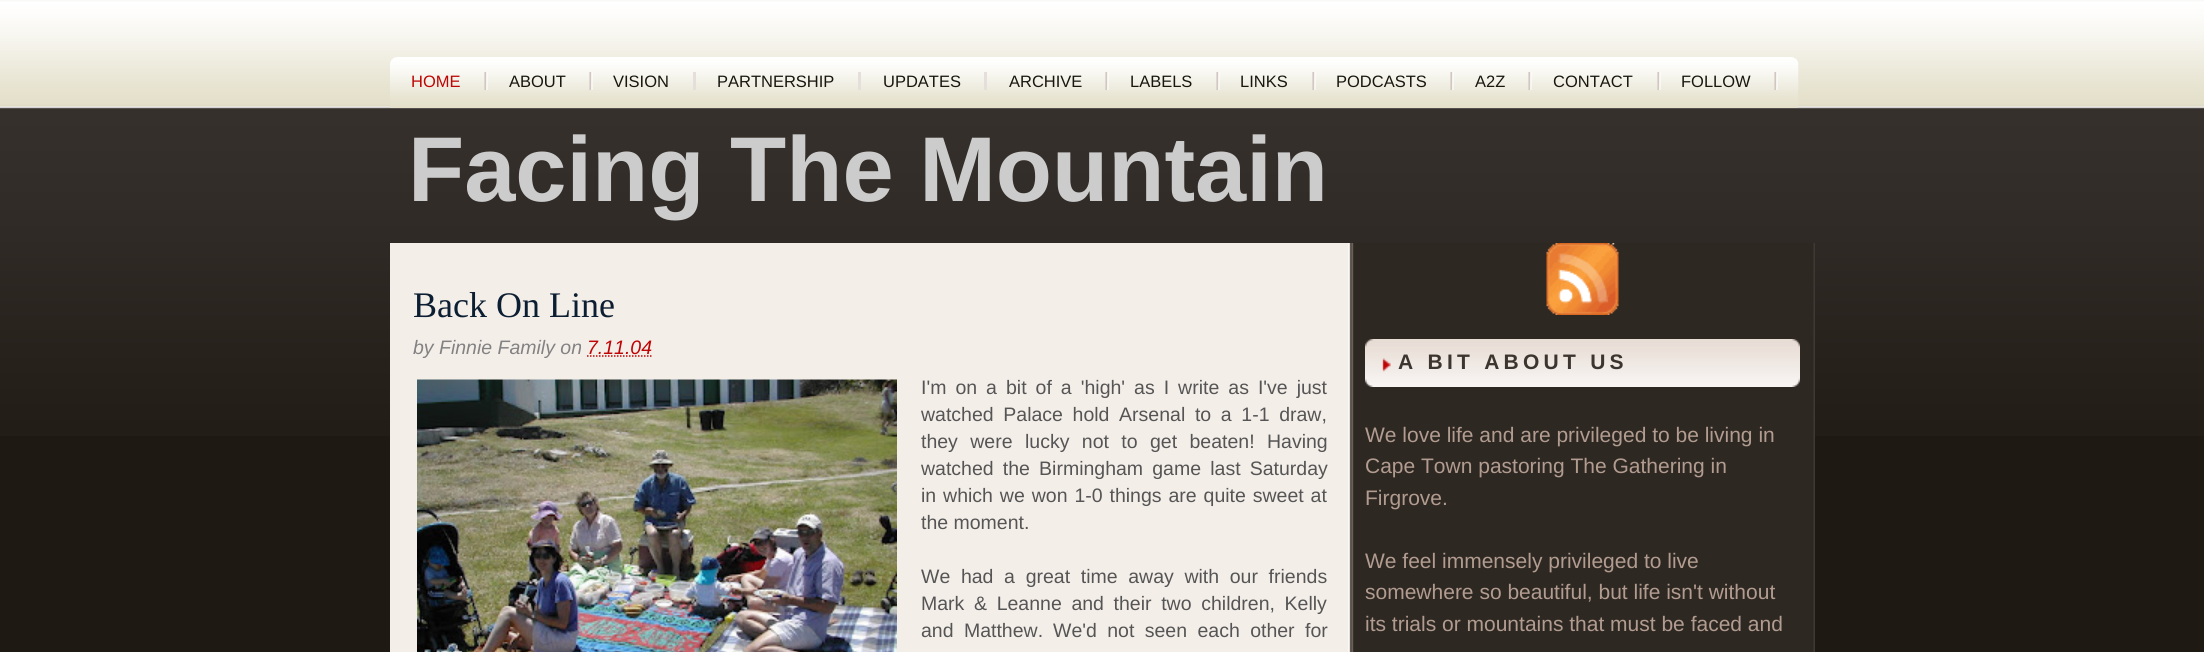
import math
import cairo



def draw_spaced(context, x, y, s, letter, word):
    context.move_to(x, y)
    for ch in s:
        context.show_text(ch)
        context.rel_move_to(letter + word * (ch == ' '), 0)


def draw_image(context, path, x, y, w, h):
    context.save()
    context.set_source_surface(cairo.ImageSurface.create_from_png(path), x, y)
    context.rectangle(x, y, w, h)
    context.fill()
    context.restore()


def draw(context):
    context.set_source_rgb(30 / 255, 25 / 255, 18 / 255)
    context.paint()
    draw_image(context, "images/1.png", 0, 0, 2204, 436)
    draw_image(context, "images/2.png", 390, 57, 1409, 51)
    draw_image(context, "images/3.png", 484, 72, 4, 18)
    draw_image(context, "images/3.png", 589, 72, 4, 18)
    context.set_source_rgb(229 / 255, 223 / 255, 219 / 255)
    context.rectangle(693, 72, 3, 18)
    context.fill()
    context.rectangle(858, 72, 3, 18)
    context.fill()
    context.rectangle(984, 72, 3, 18)
    context.fill()
    draw_image(context, "images/3.png", 1105, 72, 4, 18)
    draw_image(context, "images/3.png", 1216, 72, 4, 18)
    draw_image(context, "images/3.png", 1312, 72, 4, 18)
    draw_image(context, "images/3.png", 1450, 72, 4, 18)
    draw_image(context, "images/3.png", 1528, 72, 4, 18)
    draw_image(context, "images/3.png", 1657, 72, 4, 18)
    draw_image(context, "images/3.png", 1774, 72, 4, 18)
    draw_image(context, "images/4.png", 390, 243, 1425, 409)
    context.new_path()
    context.move_to(587, 356)
    context.line_to(652, 356)
    context.set_source_rgb(190 / 255, 4 / 255, 4 / 255)
    context.set_line_width(1.5)
    context.set_dash([1.5, 1.5])
    context.stroke()
    draw_image(context, "images/5.png", 417, 379, 480, 273)
    draw_image(context, "images/6.png", 1546, 243, 73, 72)
    draw_image(context, "images/7.png", 1365, 339, 435, 48)
    context.select_font_face("Liberation Sans")
    context.set_font_size(16.5)
    context.move_to(411, 87)
    context.show_text("HOME")
    context.set_source_rgb(24 / 255, 22 / 255, 15 / 255)
    context.move_to(509, 87)
    context.show_text("ABOUT")
    context.move_to(613, 87)
    context.show_text("VISION")
    context.move_to(717, 87)
    context.show_text("PARTNERSHIP")
    context.move_to(883, 87)
    context.show_text("UPDATES")
    context.move_to(1009, 87)
    context.show_text("ARCHIVE")
    context.move_to(1130, 87)
    context.show_text("LABELS")
    context.move_to(1240, 87)
    context.show_text("LINKS")
    context.move_to(1336, 87)
    context.show_text("PODCASTS")
    context.move_to(1475, 87)
    context.show_text("A2Z")
    context.move_to(1553, 87)
    context.show_text("CONTACT")
    context.move_to(1681, 87)
    context.show_text("FOLLOW")
    context.select_font_face("Liberation Sans", cairo.FontSlant.NORMAL, cairo.FontWeight.BOLD)
    context.set_font_size(92)
    context.set_source_rgb(204 / 255, 204 / 255, 204 / 255)
    context.move_to(408, 201)
    context.show_text("Facing The Mountain")
    context.select_font_face("Liberation Serif")
    context.set_font_size(36)
    context.set_source_rgb(12 / 255, 30 / 255, 49 / 255)
    context.move_to(413, 317)
    context.show_text("Back On Line")
    context.select_font_face("Liberation Sans", cairo.FontSlant.ITALIC)
    context.set_font_size(19.5)
    context.set_source_rgb(131 / 255, 130 / 255, 130 / 255)
    context.move_to(413, 354)
    context.show_text("by Finnie Family on")
    context.set_source_rgb(190 / 255, 4 / 255, 4 / 255)
    context.move_to(587, 354)
    context.show_text("7.11.04")
    context.select_font_face("Liberation Sans")
    context.set_source_rgb(85 / 255, 85 / 255, 85 / 255)
    draw_spaced(context, 921, 394, "I'm on a bit of a 'high' as I write as I've just", 0, 3.6)
    draw_spaced(context, 921, 421, "watched Palace hold Arsenal to a 1-1 draw,", 0, 4.25)
    draw_spaced(context, 921, 448, "they were lucky not to get beaten!", 0, 7)
    context.move_to(1267, 448)
    context.show_text("Having")
    draw_spaced(context, 921, 475, "watched the Birmingham game last Saturday", 0, 3.75)
    draw_spaced(context, 921, 502, "in which we won 1-0 things are quite sweet at", 0, 1.5)
    context.move_to(921, 529)
    context.show_text("the moment.")
    draw_spaced(context, 921, 583, "We had a great time away with our friends", 0, 5.25)
    draw_spaced(context, 921, 610, "Mark & Leanne and their two children, Kelly", 0, 4.25)
    draw_spaced(context, 921, 637, "and Matthew.", 0, 5)
    draw_spaced(context, 1053, 637, "We'd not seen each other for", 0, 5)
    context.select_font_face("Liberation Sans", cairo.FontSlant.NORMAL, cairo.FontWeight.BOLD)
    context.set_font_size(21)
    context.set_source_rgb(60 / 255, 53 / 255, 47 / 255)
    draw_spaced(context, 1398, 369, "A BIT ABOUT US", 4.25, 0)
    context.select_font_face("Liberation Sans")
    context.set_source_rgb(178 / 255, 156 / 255, 144 / 255)
    context.move_to(1365, 442)
    context.show_text("We love life and are privileged to be living in")
    context.move_to(1365, 473)
    context.show_text("Cape Town pastoring The Gathering in")
    context.move_to(1365, 505)
    context.show_text("Firgrove.")
    context.move_to(1365, 568)
    context.show_text("We feel immensely privileged to live")
    context.move_to(1365, 599)
    context.show_text("somewhere so beautiful, but life isn't without")
    context.move_to(1365, 631)
    context.show_text("its trials or mountains that must be faced and")


surface = cairo.ImageSurface(cairo.Format.RGB24, 2204, 652)
context = cairo.Context(surface)
options = cairo.FontOptions()
options.set_hint_metrics(cairo.HintMetrics.OFF)
options.set_hint_style(cairo.HintStyle.NONE)
context.set_font_options(options)
context.set_miter_limit(4)
draw(context)
surface.write_to_png("out.png")
